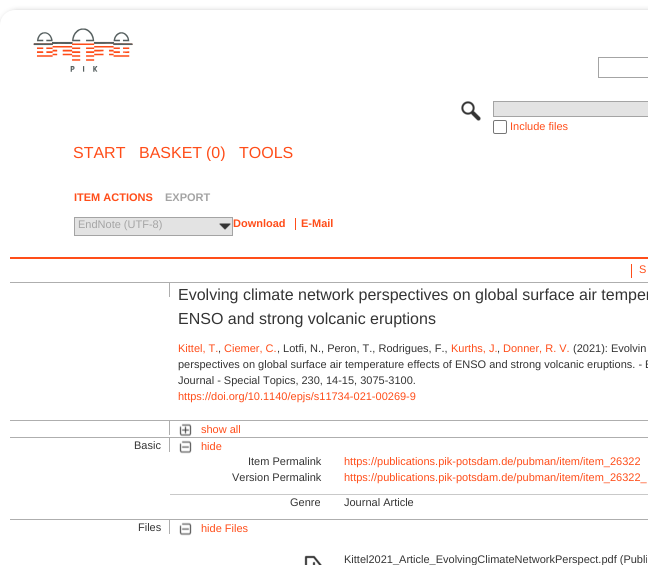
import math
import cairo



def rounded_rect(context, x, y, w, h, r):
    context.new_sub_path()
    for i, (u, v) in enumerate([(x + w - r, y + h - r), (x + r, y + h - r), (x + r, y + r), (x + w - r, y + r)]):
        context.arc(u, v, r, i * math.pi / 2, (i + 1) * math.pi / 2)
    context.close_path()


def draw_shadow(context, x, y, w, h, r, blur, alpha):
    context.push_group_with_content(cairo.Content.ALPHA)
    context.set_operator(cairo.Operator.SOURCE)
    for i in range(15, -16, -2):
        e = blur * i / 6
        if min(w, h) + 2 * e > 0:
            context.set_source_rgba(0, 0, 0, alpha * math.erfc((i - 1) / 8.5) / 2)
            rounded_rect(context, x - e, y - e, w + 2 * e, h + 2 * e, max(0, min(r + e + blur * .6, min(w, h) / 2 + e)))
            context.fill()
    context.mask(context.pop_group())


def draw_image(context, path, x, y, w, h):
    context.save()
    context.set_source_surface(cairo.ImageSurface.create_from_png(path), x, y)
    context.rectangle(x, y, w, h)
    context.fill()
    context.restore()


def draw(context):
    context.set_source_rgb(1, 1, 1)
    context.paint()
    context.set_source_rgb(153 / 255, 153 / 255, 153 / 255)
    draw_shadow(context, 2, 12, 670, 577, 15, 3, 1)
    context.set_source_rgb(1, 1, 1)
    rounded_rect(context, 0, 10, 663, 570, 15)
    context.fill()
    context.rectangle(598.5, 57.5, 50, 20)
    context.set_source_rgb(164 / 255, 164 / 255, 164 / 255)
    context.set_line_width(1)
    context.stroke()
    draw_image(context, "images/1.png", 33, 28, 100, 44)
    draw_image(context, "images/2.png", 461, 101, 20, 20)
    context.set_source_rgb(227 / 255, 227 / 255, 227 / 255)
    context.rectangle(493.5, 101.5, 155, 15)
    context.fill_preserve()
    context.set_source_rgb(164 / 255, 164 / 255, 164 / 255)
    context.stroke()
    rounded_rect(context, 493.5, 120.5, 13, 13, 1.5)
    context.set_source_rgb(118 / 255, 118 / 255, 118 / 255)
    context.stroke()
    context.set_source_rgb(227 / 255, 227 / 255, 227 / 255)
    context.rectangle(74.5, 217.5, 158, 18)
    context.fill_preserve()
    context.set_source_rgb(164 / 255, 164 / 255, 164 / 255)
    context.stroke()
    draw_image(context, "images/3.png", 219, 223, 12, 7)
    context.set_source_rgb(1, 77 / 255, 25 / 255)
    context.rectangle(295, 217, 1, 13)
    context.fill()
    context.set_source_rgb(1, 1, 1)
    context.rectangle(295, 217, 1, 1)
    context.fill()
    context.set_source_rgb(1, 77 / 255, 25 / 255)
    context.rectangle(10, 257, 638, 2)
    context.fill()
    context.rectangle(631, 264, 1, 14)
    context.fill()
    context.set_source_rgb(174 / 255, 174 / 255, 174 / 255)
    context.rectangle(10, 282, 638, 1)
    context.fill()
    context.rectangle(169, 283, 1, 14)
    context.fill()
    context.rectangle(10, 420, 638, 1)
    context.fill()
    context.rectangle(169, 421, 1, 14)
    context.fill()
    draw_image(context, "images/4.png", 179, 423, 13, 14)
    context.rectangle(10, 437, 638, 1)
    context.fill()
    context.rectangle(169, 438, 1, 14)
    context.fill()
    draw_image(context, "images/5.png", 179, 440, 13, 14)
    context.set_source_rgb(201 / 255, 201 / 255, 201 / 255)
    context.rectangle(170, 494, 478, 1)
    context.fill()
    context.set_source_rgb(174 / 255, 174 / 255, 174 / 255)
    context.rectangle(10, 519, 638, 1)
    context.fill()
    context.rectangle(169, 520, 1, 14)
    context.fill()
    draw_image(context, "images/5.png", 179, 522, 13, 14)
    draw_image(context, "images/6.png", 304, 555, 18, 10)
    context.select_font_face("Liberation Sans")
    context.set_font_size(11)
    context.set_source_rgb(1, 77 / 255, 25 / 255)
    context.move_to(510, 130)
    context.show_text("Include files")
    context.set_font_size(16)
    context.move_to(73, 158)
    context.show_text("START")
    context.move_to(139, 158)
    context.show_text("BASKET")
    context.save()
    context.rectangle(139, 145, 87, 16)
    context.clip()
    context.move_to(206, 158)
    context.show_text("(0)")
    context.restore()
    context.move_to(239, 158)
    context.show_text("TOOLS")
    context.select_font_face("Liberation Sans", cairo.FontSlant.NORMAL, cairo.FontWeight.BOLD)
    context.set_font_size(11)
    context.move_to(74, 201)
    context.show_text("ITEM ACTIONS")
    context.set_source_rgb(164 / 255, 164 / 255, 164 / 255)
    context.move_to(165, 201)
    context.show_text("EXPORT")
    context.select_font_face("Liberation Sans")
    context.move_to(78, 228)
    context.show_text("EndNote (UTF-8)")
    context.select_font_face("Liberation Sans", cairo.FontSlant.NORMAL, cairo.FontWeight.BOLD)
    context.set_source_rgb(1, 77 / 255, 25 / 255)
    context.move_to(233, 227)
    context.show_text("Download")
    context.move_to(301, 227)
    context.show_text("E-Mail")
    context.select_font_face("Liberation Sans")
    context.move_to(639, 273)
    context.show_text("S")
    context.set_font_size(16)
    context.set_source_rgb(52 / 255, 52 / 255, 52 / 255)
    context.move_to(178, 300)
    context.show_text("Evolving climate network perspectives on global surface air temper")
    context.move_to(178, 324)
    context.show_text("ENSO and strong volcanic eruptions")
    context.set_font_size(11)
    context.set_source_rgb(1, 77 / 255, 25 / 255)
    context.move_to(178, 352)
    context.show_text("Kittel, T.")
    context.set_source_rgb(52 / 255, 52 / 255, 52 / 255)
    context.move_to(218, 352)
    context.show_text(",")
    context.set_source_rgb(1, 77 / 255, 25 / 255)
    context.move_to(224, 352)
    context.show_text("Ciemer, C.")
    context.set_source_rgb(52 / 255, 52 / 255, 52 / 255)
    context.move_to(277, 352)
    context.show_text(", Lotfi, N., Peron, T., Rodrigues, F.,")
    context.set_source_rgb(1, 77 / 255, 25 / 255)
    context.move_to(451, 352)
    context.show_text("Kurths, J.")
    context.set_source_rgb(52 / 255, 52 / 255, 52 / 255)
    context.move_to(497, 352)
    context.show_text(",")
    context.set_source_rgb(1, 77 / 255, 25 / 255)
    context.move_to(503, 352)
    context.show_text("Donner, R. V.")
    context.set_source_rgb(52 / 255, 52 / 255, 52 / 255)
    context.move_to(573, 352)
    context.show_text("(2021): Evolvin")
    context.move_to(178, 368)
    context.show_text("perspectives on global surface air temperature effects of ENSO and strong volcanic eruptions. - E")
    context.move_to(178, 384)
    context.show_text("Journal - Special Topics, 230, 14-15, 3075-3100.")
    context.set_source_rgb(1, 77 / 255, 25 / 255)
    context.move_to(178, 400)
    context.show_text("https://doi.org/10.1140/epjs/s11734-021-00269-9")
    context.move_to(201, 433)
    context.show_text("show all")
    context.set_source_rgb(52 / 255, 52 / 255, 52 / 255)
    context.move_to(134, 449)
    context.show_text("Basic")
    context.set_source_rgb(1, 77 / 255, 25 / 255)
    context.move_to(201, 450)
    context.show_text("hide")
    context.set_source_rgb(52 / 255, 52 / 255, 52 / 255)
    context.move_to(248, 465)
    context.show_text("Item Permalink")
    context.set_source_rgb(1, 77 / 255, 25 / 255)
    context.move_to(344, 465)
    context.show_text("https://publications.pik-potsdam.de/pubman/item/item_26322")
    context.set_source_rgb(52 / 255, 52 / 255, 52 / 255)
    context.move_to(232, 481)
    context.show_text("Version Permalink")
    context.set_source_rgb(1, 77 / 255, 25 / 255)
    context.move_to(344, 481)
    context.show_text("https://publications.pik-potsdam.de/pubman/item/item_26322_")
    context.set_source_rgb(52 / 255, 52 / 255, 52 / 255)
    context.move_to(290, 506)
    context.show_text("Genre")
    context.move_to(344, 506)
    context.show_text("Journal Article")
    context.move_to(138, 531)
    context.show_text("Files")
    context.set_source_rgb(1, 77 / 255, 25 / 255)
    context.move_to(201, 532)
    context.show_text("hide Files")
    context.set_source_rgb(52 / 255, 52 / 255, 52 / 255)
    context.move_to(344, 563)
    context.show_text("Kittel2021_Article_EvolvingClimateNetworkPerspect.pdf (Publi")


surface = cairo.ImageSurface(cairo.Format.RGB24, 648, 565)
context = cairo.Context(surface)
options = cairo.FontOptions()
options.set_hint_metrics(cairo.HintMetrics.OFF)
options.set_hint_style(cairo.HintStyle.NONE)
context.set_font_options(options)
context.set_miter_limit(4)
draw(context)
surface.write_to_png("out.png")
